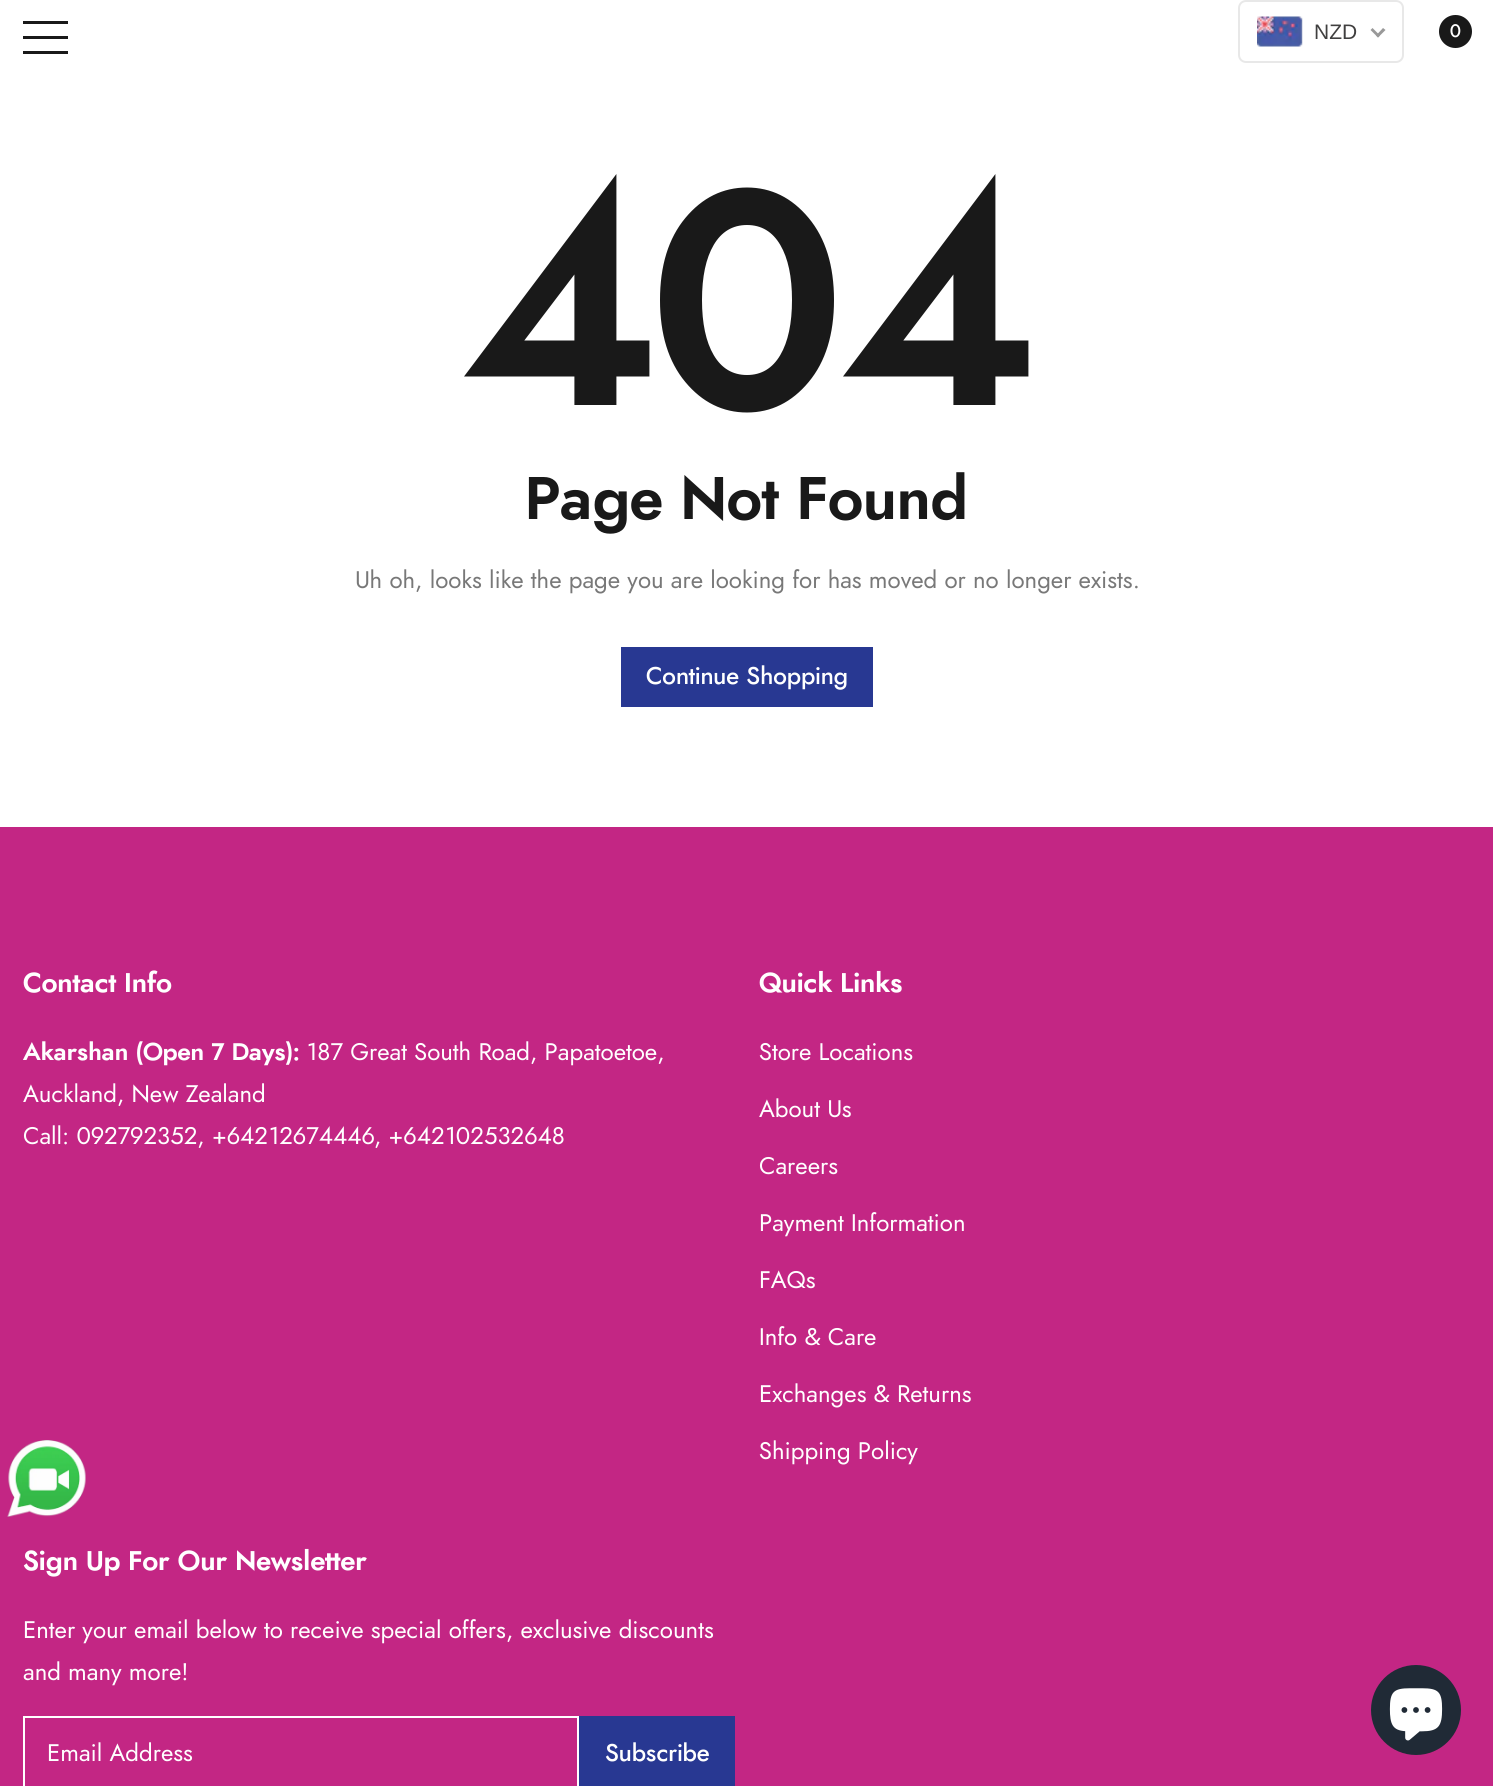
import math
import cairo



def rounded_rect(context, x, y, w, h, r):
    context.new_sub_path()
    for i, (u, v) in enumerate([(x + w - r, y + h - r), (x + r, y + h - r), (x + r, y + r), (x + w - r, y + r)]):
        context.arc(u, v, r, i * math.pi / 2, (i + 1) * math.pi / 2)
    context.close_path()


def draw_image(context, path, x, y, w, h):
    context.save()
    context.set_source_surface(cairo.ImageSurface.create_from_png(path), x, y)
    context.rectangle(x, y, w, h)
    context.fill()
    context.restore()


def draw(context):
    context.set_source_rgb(1, 1, 1)
    context.paint()
    rounded_rect(context, 1239, 1, 164, 61, 7)
    context.set_source_rgb(232 / 255, 232 / 255, 232 / 255)
    context.stroke()
    draw_image(context, "images/1.png", 1257, 16, 46, 31)
    context.set_source_rgb(153 / 255, 153 / 255, 153 / 255)
    context.new_path()
    context.move_to(1383, 28)
    context.line_to(1385.5, 30)
    context.line_to(1378, 37.5)
    context.line_to(1376, 35.5)
    context.close_path()
    context.fill()
    context.new_path()
    context.move_to(1372.5, 28)
    context.line_to(1380, 35.5)
    context.line_to(1378, 37.5)
    context.line_to(1370.5, 30)
    context.close_path()
    context.fill()
    context.set_source_rgb(25 / 255, 25 / 255, 25 / 255)
    context.rectangle(23, 36, 45, 3)
    context.fill()
    context.rectangle(23, 21, 45, 3)
    context.fill()
    context.rectangle(23, 51, 45, 3)
    context.fill()
    context.arc(1455.5, 31.5, 16.5, 0, 2 * math.pi)
    context.fill()
    context.set_source_rgb(40 / 255, 56 / 255, 146 / 255)
    context.rectangle(621, 647, 252, 60)
    context.fill()
    context.set_source_rgb(195 / 255, 38 / 255, 132 / 255)
    context.rectangle(0, 827, 1493, 959)
    context.fill()
    context.rectangle(24, 1717, 554, 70)
    context.set_source_rgb(1, 1, 1)
    context.stroke()
    context.set_source_rgb(40 / 255, 56 / 255, 146 / 255)
    context.rectangle(579, 1716, 156, 70)
    context.fill()
    draw_image(context, "images/2.png", 7, 1440, 79, 77)
    context.set_source_rgb(32 / 255, 42 / 255, 54 / 255)
    context.arc(1416, 1710, 45, 0, 2 * math.pi)
    context.fill()
    draw_image(context, "images/3.png", 1389, 1688, 54, 53)
    context.select_font_face("Liberation Sans")
    context.set_font_size(21)
    context.set_source_rgb(64 / 255, 63 / 255, 63 / 255)
    context.move_to(1314, 39)
    context.show_text("NZD")
    context.select_font_face("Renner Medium")
    context.set_font_size(18)
    context.set_source_rgb(1, 1, 1)
    context.move_to(1450, 37)
    context.show_text("0")
    context.select_font_face("Renner", cairo.FontSlant.NORMAL, cairo.FontWeight.BOLD)
    context.set_font_size(300)
    context.set_source_rgb(25 / 255, 25 / 255, 25 / 255)
    context.move_to(464, 405)
    context.show_text("404")
    context.set_font_size(60)
    context.move_to(525, 519)
    context.show_text("Page Not Found")
    context.select_font_face("Renner")
    context.set_font_size(24)
    context.set_source_rgb(120 / 255, 120 / 255, 120 / 255)
    context.move_to(355, 588)
    context.show_text("Uh oh, looks like the page you are looking for has moved or no longer exists.")
    context.select_font_face("Renner Medium")
    context.set_source_rgb(1, 1, 1)
    context.move_to(646, 684)
    context.show_text("Continue Shopping")
    context.select_font_face("Renner", cairo.FontSlant.NORMAL, cairo.FontWeight.BOLD)
    context.set_font_size(27)
    context.move_to(23, 992)
    context.show_text("Contact Info")
    context.set_font_size(24)
    context.move_to(23, 1060)
    context.show_text("Akarshan (Open 7 Days):")
    context.select_font_face("Renner")
    context.move_to(306, 1060)
    context.show_text("187 Great South Road, Papatoetoe,")
    context.move_to(23, 1102)
    context.show_text("Auckland, New Zealand")
    context.move_to(23, 1144)
    context.show_text("Call: 092792352, +64212674446")
    context.move_to(374, 1144)
    context.show_text(", +642102532648")
    context.select_font_face("Renner", cairo.FontSlant.NORMAL, cairo.FontWeight.BOLD)
    context.set_font_size(27)
    context.move_to(759, 992)
    context.show_text("Quick Links")
    context.select_font_face("Renner")
    context.set_font_size(24)
    context.move_to(759, 1060)
    context.show_text("Store Locations")
    context.move_to(759, 1117)
    context.show_text("About Us")
    context.move_to(759, 1174)
    context.show_text("Careers")
    context.move_to(759, 1231)
    context.show_text("Payment Information")
    context.move_to(759, 1288)
    context.show_text("FAQs")
    context.move_to(759, 1345)
    context.show_text("Info & Care")
    context.move_to(759, 1402)
    context.show_text("Exchanges & Returns")
    context.move_to(759, 1459)
    context.show_text("Shipping Policy")
    context.select_font_face("Renner", cairo.FontSlant.NORMAL, cairo.FontWeight.BOLD)
    context.set_font_size(27)
    context.move_to(23, 1570)
    context.show_text("Sign Up For Our Newsletter")
    context.select_font_face("Renner")
    context.set_font_size(24)
    context.move_to(23, 1638)
    context.show_text("Enter your email below to receive special offers, exclusive discounts")
    context.move_to(23, 1680)
    context.show_text("and many more!")
    context.move_to(47, 1761)
    context.show_text("Email Address")
    context.select_font_face("Renner Medium")
    context.move_to(605, 1761)
    context.show_text("Subscribe")


surface = cairo.ImageSurface(cairo.Format.RGB24, 1493, 1786)
context = cairo.Context(surface)
options = cairo.FontOptions()
options.set_hint_metrics(cairo.HintMetrics.OFF)
options.set_hint_style(cairo.HintStyle.NONE)
context.set_font_options(options)
context.set_miter_limit(4)
draw(context)
surface.write_to_png("out.png")
